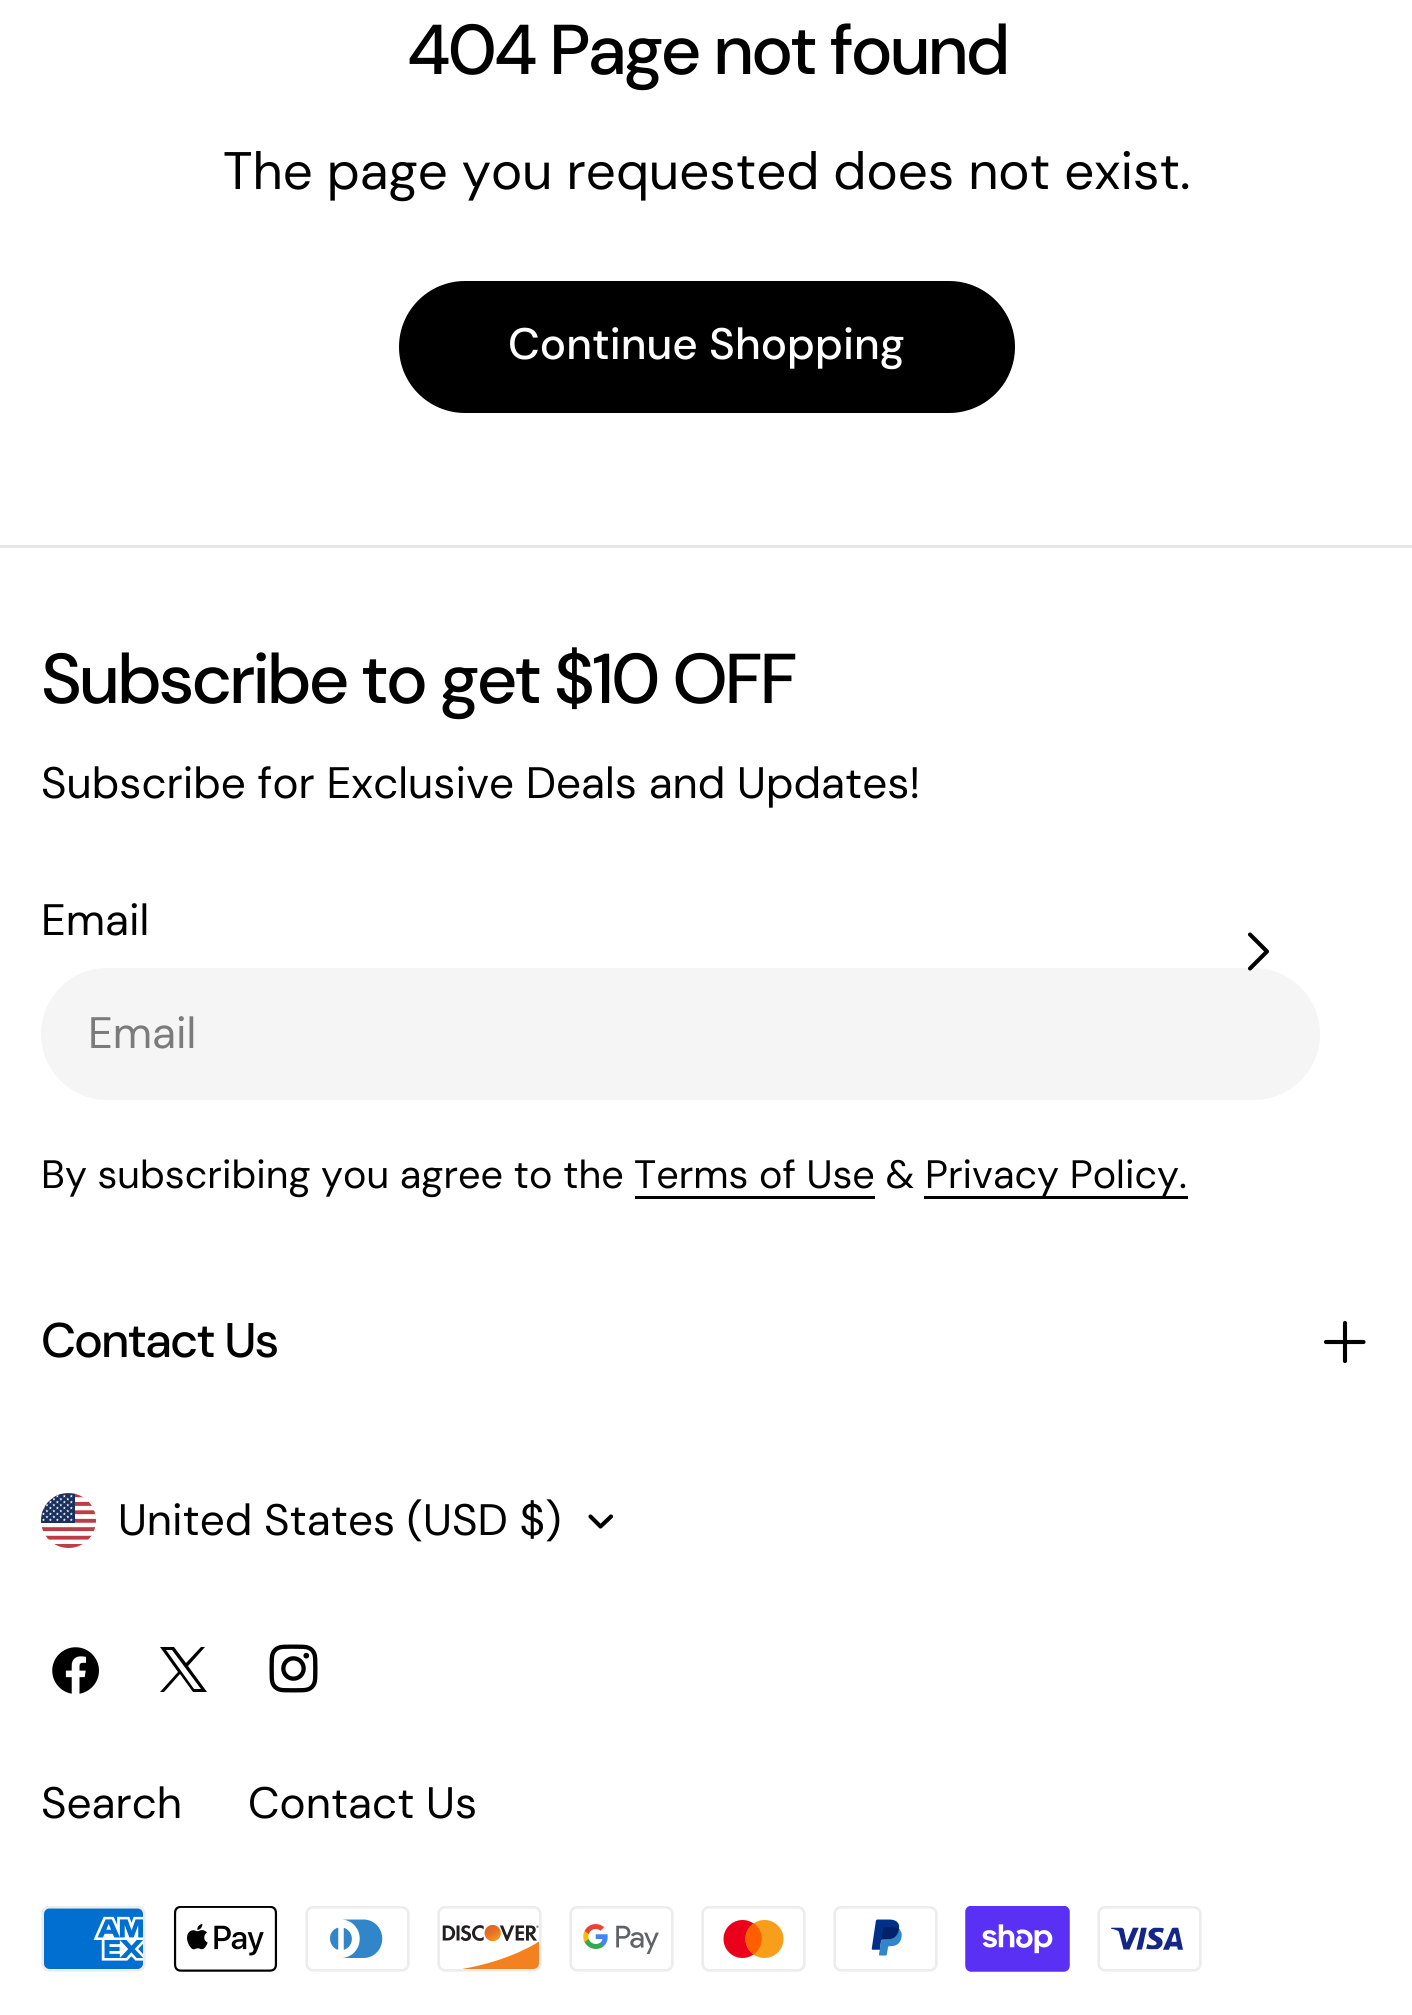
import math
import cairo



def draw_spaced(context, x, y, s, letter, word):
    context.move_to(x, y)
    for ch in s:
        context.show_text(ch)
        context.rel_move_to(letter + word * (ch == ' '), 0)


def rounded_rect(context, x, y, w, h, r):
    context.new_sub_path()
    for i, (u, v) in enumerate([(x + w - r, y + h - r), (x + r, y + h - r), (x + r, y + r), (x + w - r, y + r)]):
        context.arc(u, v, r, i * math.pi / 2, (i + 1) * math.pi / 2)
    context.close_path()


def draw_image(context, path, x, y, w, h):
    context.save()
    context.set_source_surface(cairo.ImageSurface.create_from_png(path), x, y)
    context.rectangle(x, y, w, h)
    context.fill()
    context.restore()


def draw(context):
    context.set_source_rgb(1, 1, 1)
    context.paint()
    context.set_source_rgb(0, 0, 0)
    rounded_rect(context, 399, 281, 616, 132, 66)
    context.fill()
    context.set_source_rgb(230 / 255, 230 / 255, 230 / 255)
    context.rectangle(0, 545, 1412, 3)
    context.fill()
    context.set_source_rgb(245 / 255, 245 / 255, 245 / 255)
    rounded_rect(context, 42.5, 969.5, 1276, 129, 64.5)
    context.fill_preserve()
    context.set_line_width(3)
    context.stroke()
    context.new_path()
    context.move_to(1250, 934.5)
    context.line_to(1267, 951.5)
    context.line_to(1250, 968.5)
    context.set_source_rgb(0, 0, 0)
    context.set_line_width(4.1)
    context.set_line_cap(cairo.LineCap.ROUND)
    context.set_line_join(cairo.LineJoin.ROUND)
    context.stroke()
    context.rectangle(635, 1196, 240, 3)
    context.fill()
    context.rectangle(924, 1196, 264, 3)
    context.fill()
    context.new_path()
    context.move_to(1326, 1342)
    context.line_to(1363.5, 1342)
    context.move_to(1345, 1323)
    context.line_to(1345, 1361)
    context.stroke()
    draw_image(context, "images/1.png", 41, 1493, 55, 55)
    context.new_path()
    context.move_to(611, 1516.5)
    context.line_to(600.5, 1526.5)
    context.line_to(590.5, 1516.5)
    context.stroke()
    draw_image(context, "images/2.png", 52, 1647, 47, 47)
    context.new_path()
    context.move_to(160, 1647)
    context.line_to(178, 1672)
    context.line_to(160, 1692)
    context.line_to(164, 1692)
    context.line_to(180, 1674)
    context.line_to(193, 1692)
    context.line_to(207, 1692)
    context.line_to(188, 1666)
    context.line_to(205, 1647)
    context.line_to(201, 1647)
    context.line_to(186, 1663)
    context.line_to(174, 1647)
    context.close_path()
    context.move_to(166, 1650)
    context.line_to(172, 1650)
    context.line_to(201, 1689)
    context.line_to(194, 1689)
    context.close_path()
    context.fill()
    draw_image(context, "images/3.png", 269, 1644, 49, 49)
    draw_image(context, "images/4.png", 41, 1906, 105, 66)
    draw_image(context, "images/5.png", 173, 1906, 105, 66)
    draw_image(context, "images/6.png", 305, 1906, 105, 66)
    draw_image(context, "images/7.png", 437, 1906, 105, 66)
    draw_image(context, "images/8.png", 569, 1906, 105, 66)
    draw_image(context, "images/9.png", 701, 1906, 105, 66)
    draw_image(context, "images/10.png", 833, 1906, 105, 66)
    draw_image(context, "images/11.png", 965, 1906, 105, 66)
    draw_image(context, "images/12.png", 1097, 1906, 105, 66)
    context.select_font_face("DM Sans Medium")
    context.set_font_size(70.4)
    draw_spaced(context, 407, 74, "404 Page not found", -2.8, 0)
    context.select_font_face("DM Sans")
    context.set_font_size(52.75)
    context.move_to(223, 189)
    context.show_text("The page you requested does not exist.")
    context.select_font_face("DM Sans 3 Medium")
    context.set_font_size(44)
    context.set_source_rgb(1, 1, 1)
    context.move_to(508, 359)
    context.show_text("Continue Shopping")
    context.select_font_face("DM Sans Medium")
    context.set_font_size(70.4)
    context.set_source_rgb(0, 0, 0)
    draw_spaced(context, 41, 703, "Subscribe to get $10 OFF", -2.8, 0)
    context.select_font_face("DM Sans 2")
    context.set_font_size(44)
    context.move_to(41, 798)
    context.show_text("Subscribe for Exclusive Deals and Updates!")
    context.move_to(41, 935)
    context.show_text("Email")
    context.set_source_rgb(123 / 255, 123 / 255, 123 / 255)
    context.move_to(88, 1048)
    context.show_text("Email")
    context.select_font_face("DM Sans 3")
    context.set_font_size(39.6)
    context.set_source_rgb(0, 0, 0)
    context.move_to(41, 1188)
    context.show_text("By subscribing you agree to the")
    context.move_to(634, 1188)
    context.show_text("Terms of Use &")
    context.move_to(925, 1188)
    context.show_text("Privacy Policy.")
    context.select_font_face("DM Sans 2 Medium")
    context.set_font_size(48.5)
    draw_spaced(context, 41, 1357, "Contact Us", -2, 0)
    context.select_font_face("DM Sans 2")
    context.set_font_size(44)
    context.move_to(118, 1535)
    context.show_text("United States (USD $)")
    context.move_to(41, 1818)
    context.show_text("Search")
    context.move_to(248, 1818)
    context.show_text("Contact Us")


surface = cairo.ImageSurface(cairo.Format.RGB24, 1412, 2015)
context = cairo.Context(surface)
options = cairo.FontOptions()
options.set_hint_metrics(cairo.HintMetrics.OFF)
options.set_hint_style(cairo.HintStyle.NONE)
context.set_font_options(options)
context.set_miter_limit(4)
draw(context)
surface.write_to_png("out.png")
